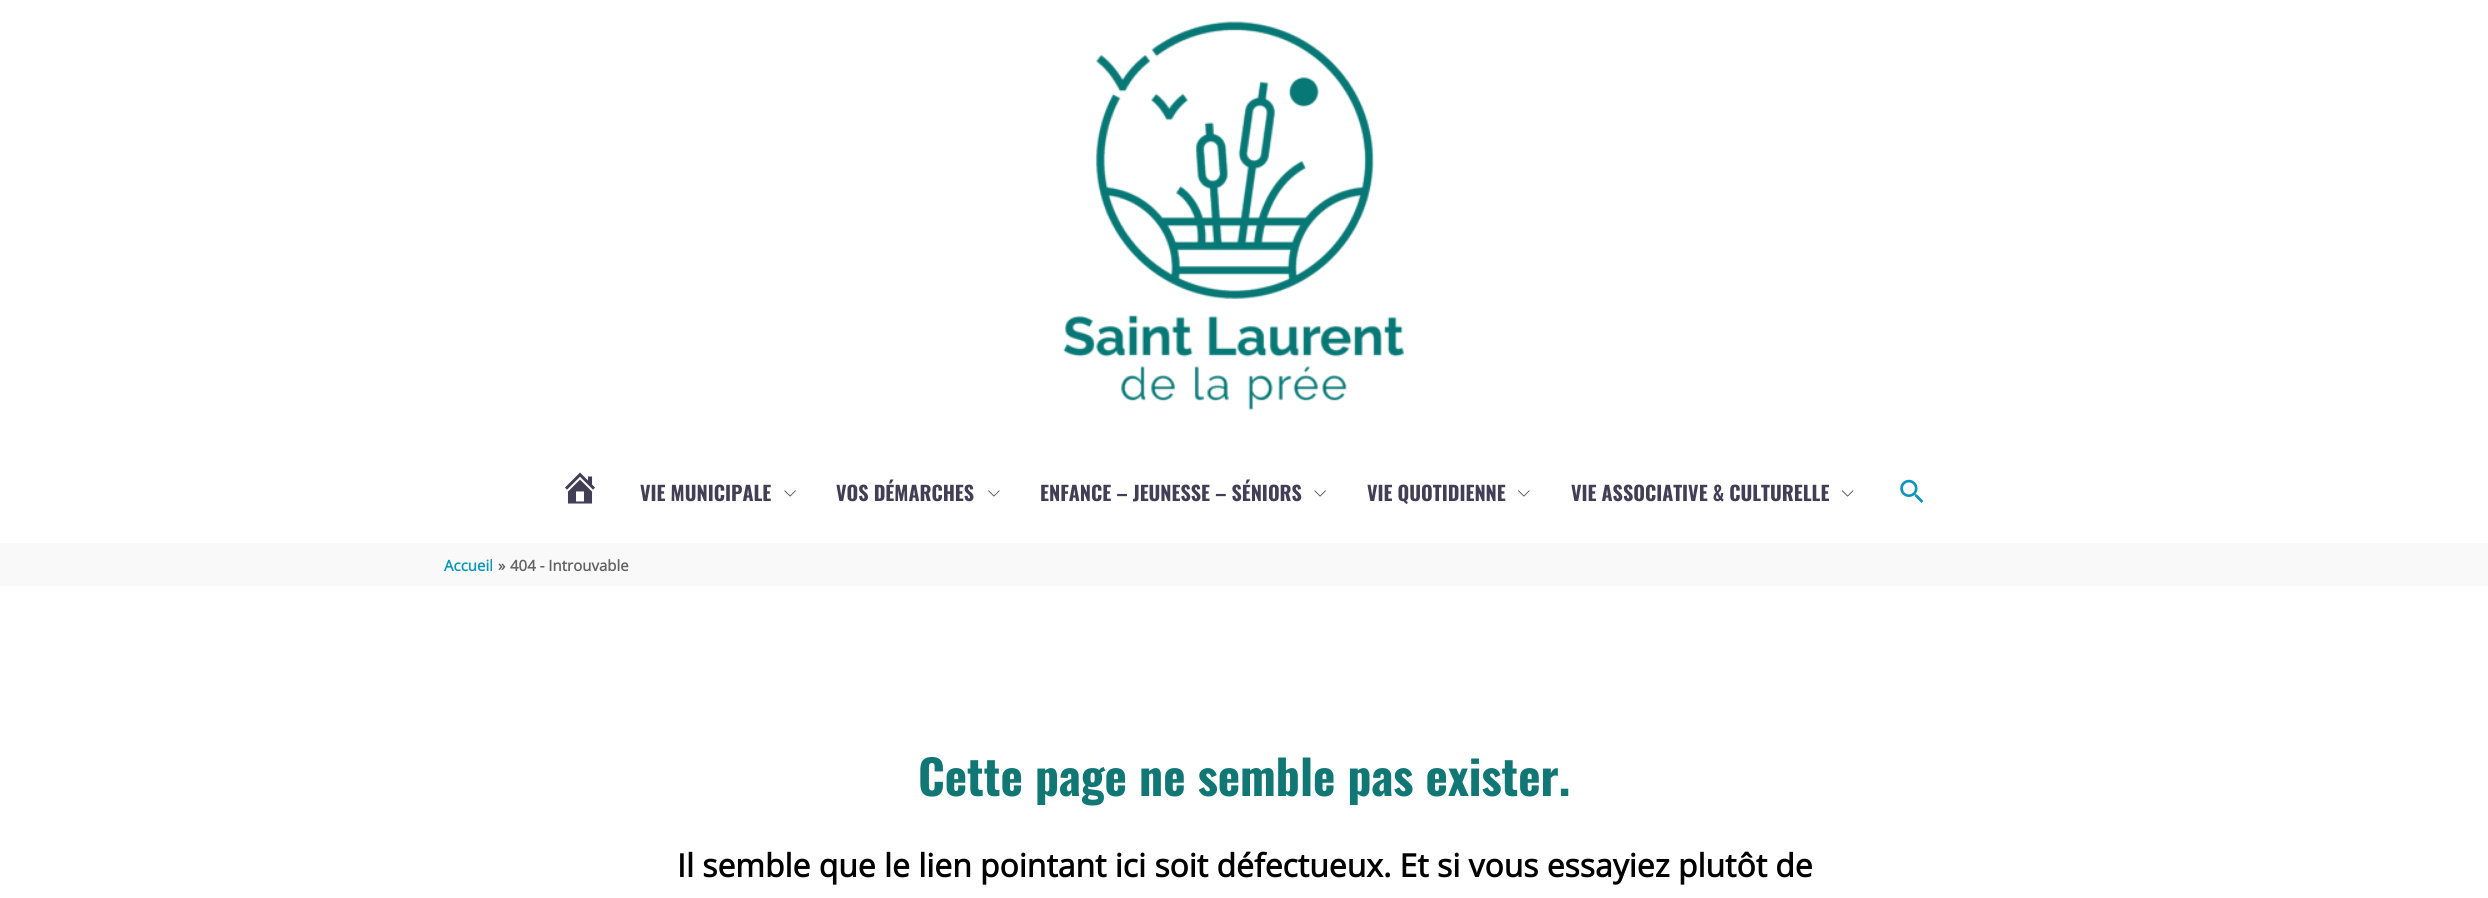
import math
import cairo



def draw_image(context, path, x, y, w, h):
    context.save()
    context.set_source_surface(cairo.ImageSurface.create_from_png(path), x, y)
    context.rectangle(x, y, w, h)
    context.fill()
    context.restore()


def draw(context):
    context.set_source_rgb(1, 1, 1)
    context.paint()
    draw_image(context, "images/1.png", 1063, 21, 342, 389)
    draw_image(context, "images/2.png", 565, 472, 30, 32)
    draw_image(context, "images/3.png", 784, 490, 12, 7)
    draw_image(context, "images/4.png", 988, 490, 12, 7)
    draw_image(context, "images/3.png", 1314, 490, 12, 7)
    draw_image(context, "images/4.png", 1518, 490, 12, 7)
    draw_image(context, "images/5.png", 1841, 490, 13, 7)
    draw_image(context, "images/6.png", 1900, 479, 24, 24)
    context.set_source_rgb(249 / 255, 249 / 255, 249 / 255)
    context.rectangle(0, 543, 2488, 43)
    context.fill()
    context.select_font_face("Oswald", cairo.FontSlant.NORMAL, cairo.FontWeight.BOLD)
    context.set_font_size(20)
    context.set_source_rgb(66 / 255, 62 / 255, 86 / 255)
    context.move_to(640, 501)
    context.show_text("VIE MUNICIPALE")
    context.move_to(836, 501)
    context.show_text("VOS DÉMARCHES")
    context.move_to(1040, 501)
    context.show_text("ENFANCE – JEUNESSE – SÉNIORS")
    context.move_to(1367, 501)
    context.show_text("VIE QUOTIDIENNE")
    context.move_to(1571, 501)
    context.show_text("VIE ASSOCIATIVE & CULTURELLE")
    context.select_font_face("Open Sans", cairo.FontSlant.NORMAL, cairo.FontWeight.BOLD)
    context.set_font_size(15)
    context.set_source_rgb(8 / 255, 150 / 255, 188 / 255)
    context.move_to(444, 571)
    context.show_text("Accueil")
    context.set_source_rgb(99 / 255, 99 / 255, 99 / 255)
    context.move_to(498, 571)
    context.show_text("»")
    context.move_to(510, 571)
    context.show_text("404 - Introuvable")
    context.select_font_face("Oswald", cairo.FontSlant.NORMAL, cairo.FontWeight.BOLD)
    context.set_font_size(47.5)
    context.set_source_rgb(16 / 255, 119 / 255, 116 / 255)
    context.move_to(918, 796)
    context.show_text("Cette page ne semble pas exister.")
    context.select_font_face("Open Sans", cairo.FontSlant.NORMAL, cairo.FontWeight.BOLD)
    context.set_font_size(31.9)
    context.set_source_rgb(0, 0, 0)
    context.move_to(677, 877)
    context.show_text("Il semble que le lien pointant ici soit défectueux. Et si vous essayiez plutôt de")


surface = cairo.ImageSurface(cairo.Format.RGB24, 2488, 898)
context = cairo.Context(surface)
options = cairo.FontOptions()
options.set_hint_metrics(cairo.HintMetrics.OFF)
options.set_hint_style(cairo.HintStyle.NONE)
context.set_font_options(options)
context.set_miter_limit(4)
draw(context)
surface.write_to_png("out.png")
